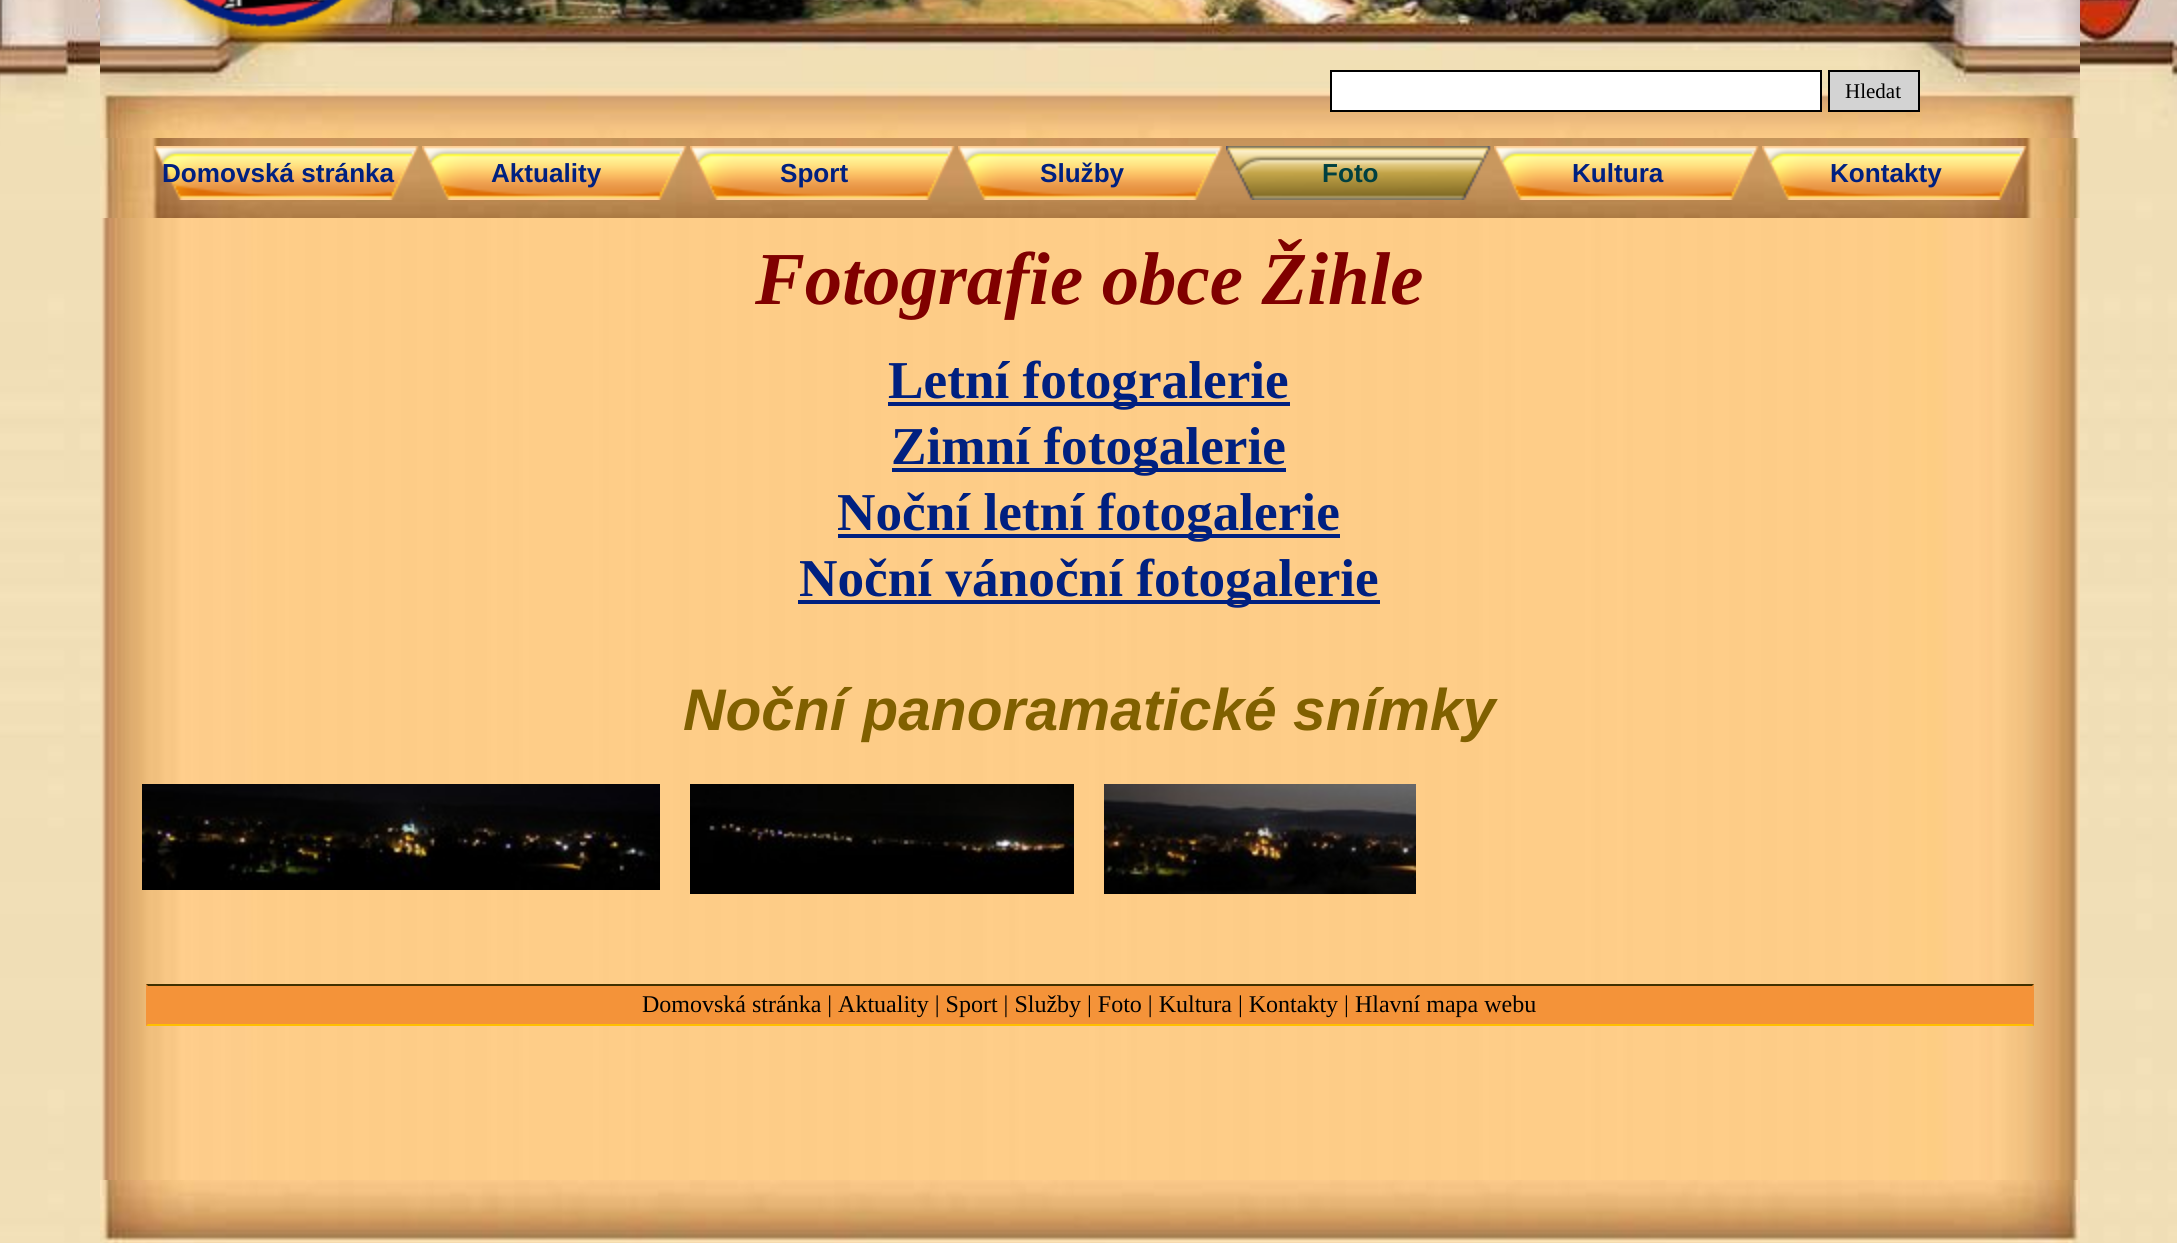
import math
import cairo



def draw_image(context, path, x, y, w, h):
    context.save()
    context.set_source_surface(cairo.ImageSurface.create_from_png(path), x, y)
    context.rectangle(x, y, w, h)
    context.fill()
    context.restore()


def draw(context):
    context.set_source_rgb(1, 1, 1)
    context.paint()
    draw_image(context, "images/1.png", 0, 0, 2177, 1243)
    draw_image(context, "images/2.png", 100, 0, 1980, 138)
    draw_image(context, "images/3.png", 152, 0, 230, 55)
    context.set_source_rgb(1, 1, 1)
    context.rectangle(1331, 71, 490, 40)
    context.fill_preserve()
    context.set_source_rgb(0, 0, 0)
    context.stroke()
    context.set_source_rgb(211 / 255, 211 / 255, 211 / 255)
    context.rectangle(1829, 71, 90, 40)
    context.fill_preserve()
    context.set_source_rgb(0, 0, 0)
    context.stroke()
    draw_image(context, "images/4.png", 100, 138, 1980, 80)
    draw_image(context, "images/5.png", 154, 146, 265, 54)
    draw_image(context, "images/6.png", 422, 146, 265, 54)
    draw_image(context, "images/7.png", 690, 146, 265, 54)
    draw_image(context, "images/8.png", 958, 146, 265, 54)
    draw_image(context, "images/9.png", 1226, 146, 265, 54)
    draw_image(context, "images/10.png", 1494, 146, 265, 54)
    draw_image(context, "images/11.png", 1762, 146, 265, 54)
    draw_image(context, "images/12.png", 100, 218, 1980, 962)
    context.set_source_rgb(0, 32 / 255, 128 / 255)
    context.rectangle(888, 402, 402, 4)
    context.fill()
    context.rectangle(892, 468, 394, 4)
    context.fill()
    context.rectangle(838, 534, 502, 4)
    context.fill()
    context.rectangle(798, 600, 582, 4)
    context.fill()
    draw_image(context, "images/13.png", 142, 784, 518, 106)
    draw_image(context, "images/14.png", 690, 784, 384, 110)
    draw_image(context, "images/15.png", 1104, 784, 312, 110)
    context.set_source_rgb(244 / 255, 147 / 255, 57 / 255)
    context.rectangle(146, 984, 1888, 42)
    context.fill()
    context.set_source_rgb(64 / 255, 48 / 255, 0)
    context.new_path()
    context.move_to(146, 984)
    context.line_to(2034, 984)
    context.line_to(2032, 986)
    context.line_to(148, 986)
    context.close_path()
    context.fill()
    context.set_source_rgb(1, 191 / 255, 0)
    context.new_path()
    context.move_to(2034, 1026)
    context.line_to(146, 1026)
    context.line_to(148, 1024)
    context.line_to(2032, 1024)
    context.close_path()
    context.fill()
    draw_image(context, "images/16.png", 100, 1180, 1980, 63)
    context.select_font_face("Liberation Serif")
    context.set_font_size(21)
    context.set_source_rgb(0, 0, 0)
    context.move_to(1845, 98)
    context.show_text("Hledat")
    context.select_font_face("Liberation Sans", cairo.FontSlant.NORMAL, cairo.FontWeight.BOLD)
    context.set_font_size(26.1)
    context.set_source_rgb(0, 32 / 255, 128 / 255)
    context.move_to(162, 182)
    context.show_text("Domovská stránka")
    context.move_to(491, 182)
    context.show_text("Aktuality")
    context.move_to(780, 182)
    context.show_text("Sport")
    context.move_to(1040, 182)
    context.show_text("Služby")
    context.set_source_rgb(0, 64 / 255, 64 / 255)
    context.move_to(1322, 182)
    context.show_text("Foto")
    context.set_source_rgb(0, 32 / 255, 128 / 255)
    context.move_to(1572, 182)
    context.show_text("Kultura")
    context.move_to(1830, 182)
    context.show_text("Kontakty")
    context.select_font_face("Liberation Serif", cairo.FontSlant.ITALIC, cairo.FontWeight.BOLD)
    context.set_font_size(74.75)
    context.set_source_rgb(128 / 255, 0, 0)
    context.move_to(755, 304)
    context.show_text("Fotografie obce Žihle")
    context.select_font_face("Liberation Serif", cairo.FontSlant.NORMAL, cairo.FontWeight.BOLD)
    context.set_font_size(53.25)
    context.set_source_rgb(0, 32 / 255, 128 / 255)
    context.move_to(888, 398)
    context.show_text("Letní fotogralerie")
    context.move_to(891, 464)
    context.show_text("Zimní fotogalerie")
    context.move_to(837, 530)
    context.show_text("Noční letní fotogalerie")
    context.move_to(799, 596)
    context.show_text("Noční vánoční fotogalerie")
    context.select_font_face("Liberation Sans", cairo.FontSlant.ITALIC, cairo.FontWeight.BOLD)
    context.set_font_size(58.7)
    context.set_source_rgb(128 / 255, 96 / 255, 0)
    context.move_to(683, 730)
    context.show_text("Noční panoramatické snímky")
    context.select_font_face("Liberation Serif")
    context.set_font_size(24)
    context.set_source_rgb(0, 0, 0)
    context.move_to(642, 1012)
    context.show_text("Domovská stránka | Aktuality | Sport | Služby | Foto | Kultura | Kontakty | Hlavní mapa webu")


surface = cairo.ImageSurface(cairo.Format.RGB24, 2177, 1243)
context = cairo.Context(surface)
options = cairo.FontOptions()
options.set_hint_metrics(cairo.HintMetrics.OFF)
options.set_hint_style(cairo.HintStyle.NONE)
context.set_font_options(options)
context.set_miter_limit(4)
draw(context)
surface.write_to_png("out.png")
